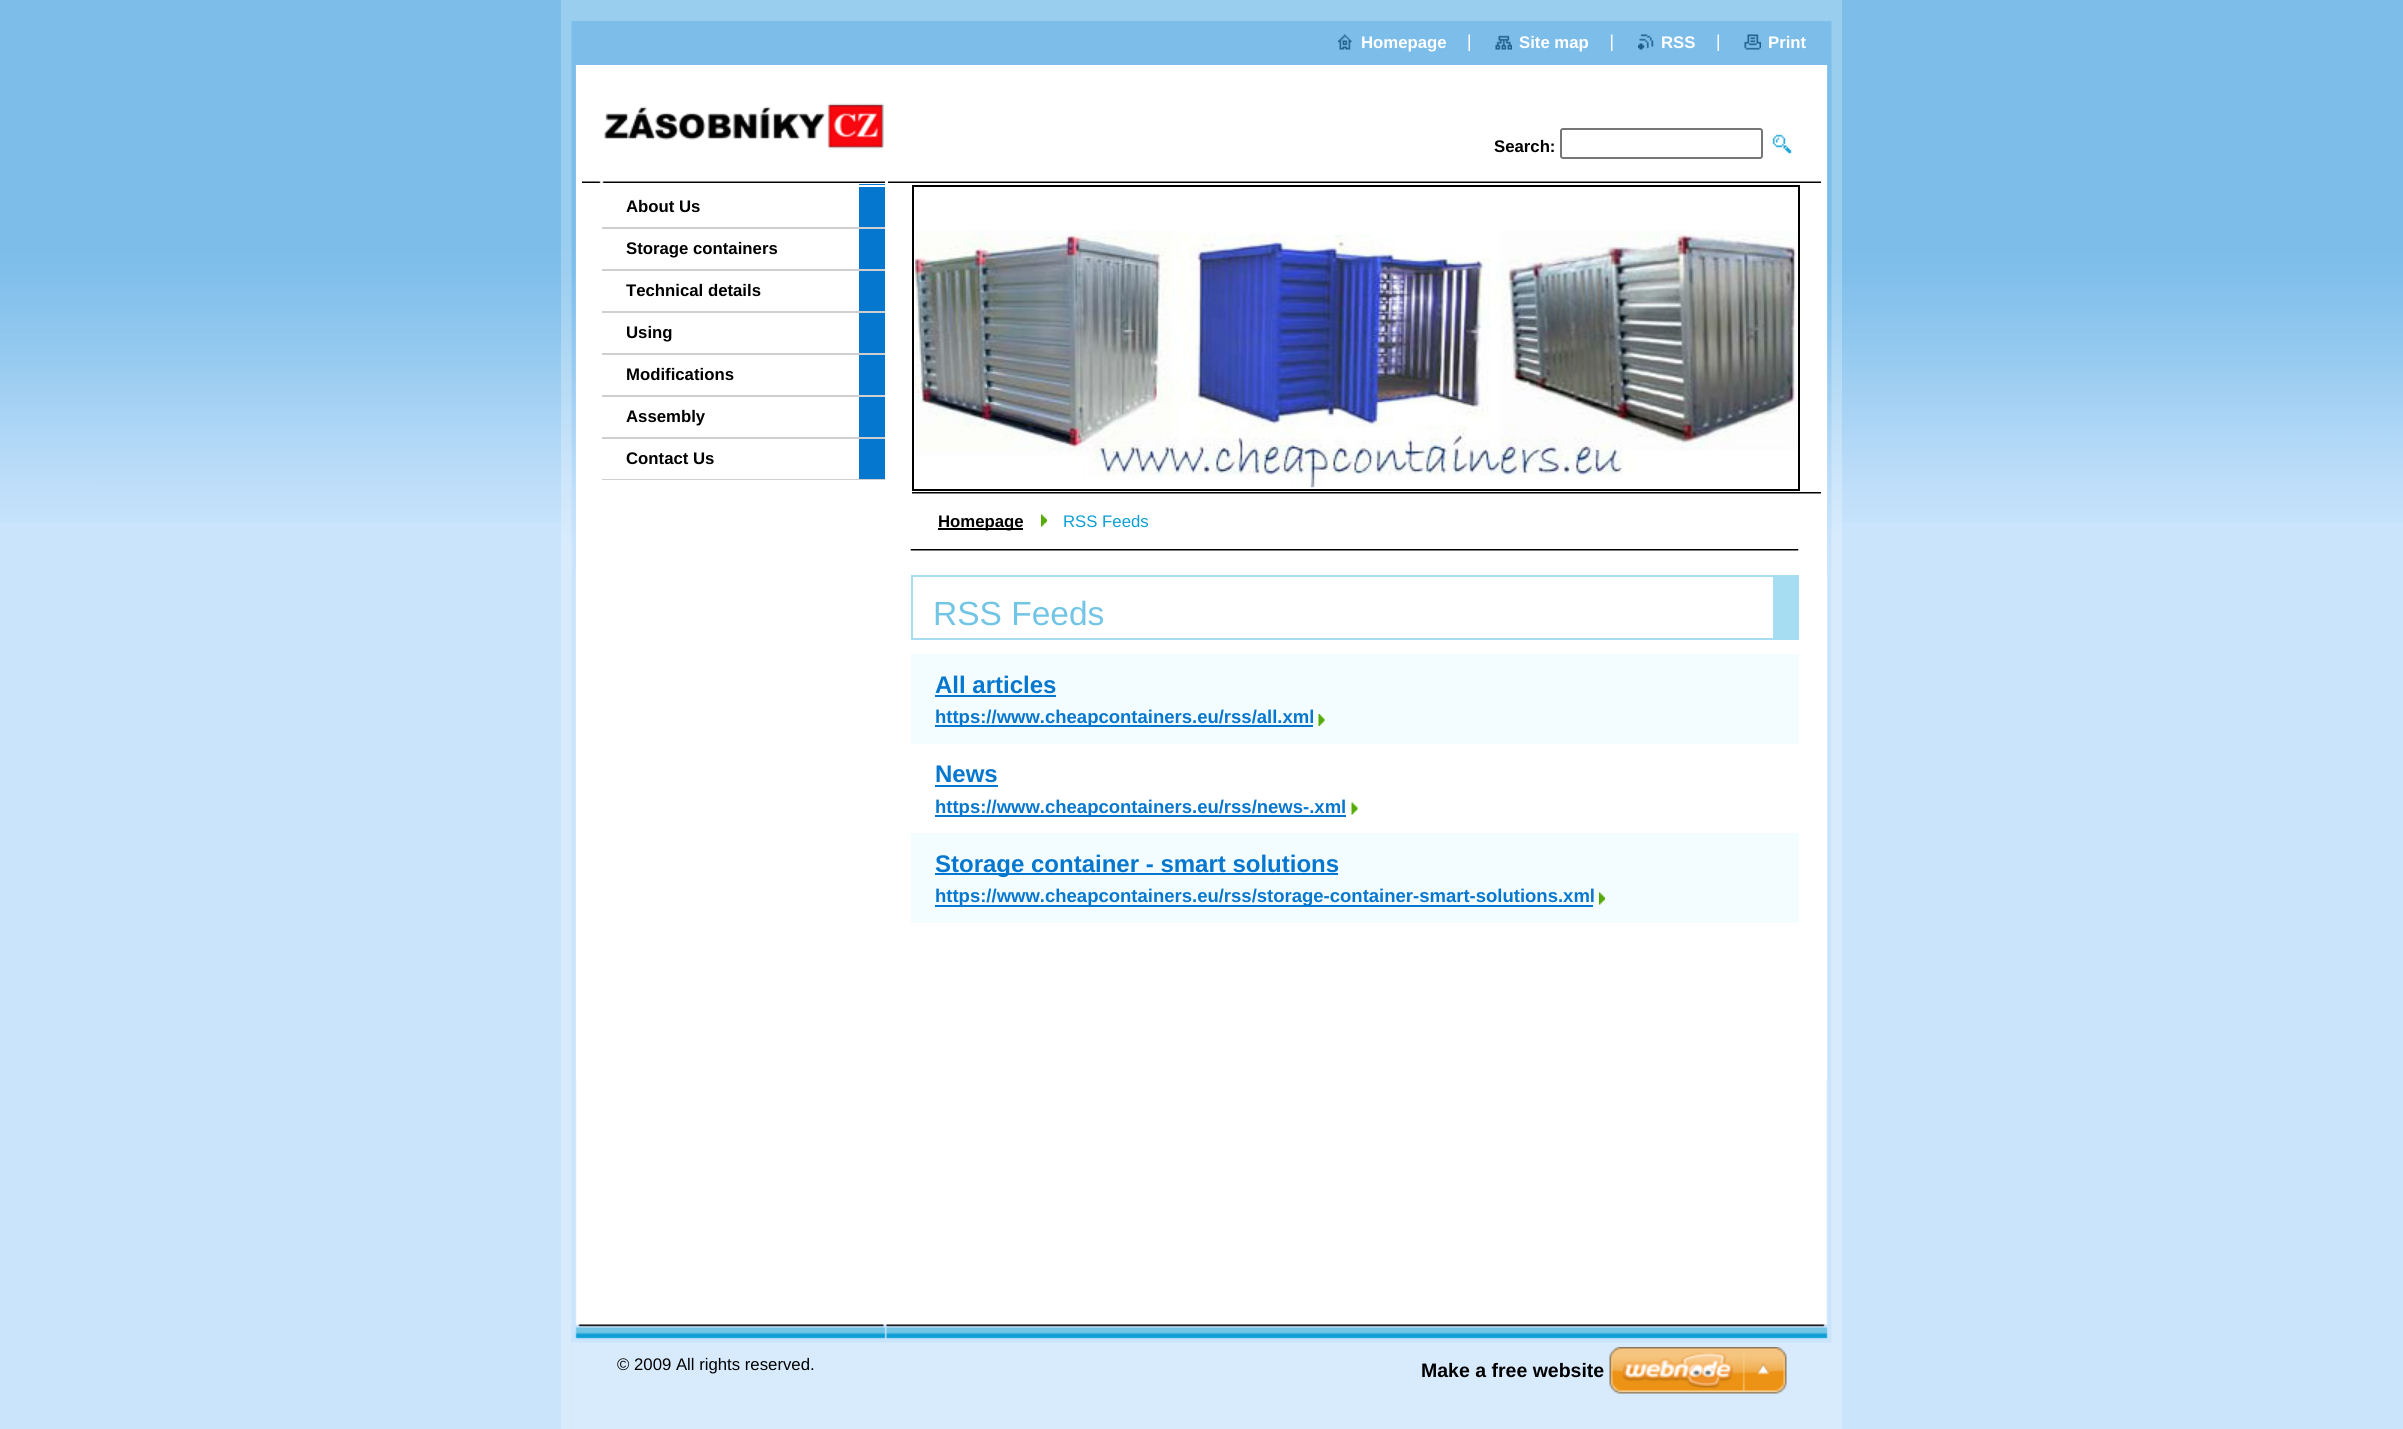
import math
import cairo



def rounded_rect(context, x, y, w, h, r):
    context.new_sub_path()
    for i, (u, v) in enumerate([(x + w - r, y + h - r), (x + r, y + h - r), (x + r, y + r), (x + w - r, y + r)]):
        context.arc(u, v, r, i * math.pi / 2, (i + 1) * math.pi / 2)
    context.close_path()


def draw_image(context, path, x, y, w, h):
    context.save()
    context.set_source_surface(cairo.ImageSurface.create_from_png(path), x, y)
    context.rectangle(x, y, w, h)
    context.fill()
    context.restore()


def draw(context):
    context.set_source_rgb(202 / 255, 228 / 255, 252 / 255)
    context.paint()
    draw_image(context, "images/1.png", 0, 0, 2403, 522)
    context.set_source_rgb(216 / 255, 235 / 255, 253 / 255)
    context.rectangle(561, 570, 1281, 859)
    context.fill()
    draw_image(context, "images/2.png", 571, 64, 1261, 1365)
    draw_image(context, "images/3.png", 561, 0, 1281, 570)
    context.set_source_rgb(1, 1, 1)
    context.rectangle(576, 65, 1251, 1015)
    context.fill()
    context.set_source_rgb(154 / 255, 206 / 255, 239 / 255)
    context.rectangle(576, 20, 1251, 1)
    context.fill()
    context.set_source_rgb(124 / 255, 189 / 255, 234 / 255)
    context.rectangle(576, 21, 1251, 44)
    context.fill()
    draw_image(context, "images/4.png", 1338, 34, 14, 16)
    draw_image(context, "images/5.png", 1468, 34, 2, 17)
    draw_image(context, "images/6.png", 1495, 35, 17, 15)
    draw_image(context, "images/7.png", 1611, 34, 2, 17)
    draw_image(context, "images/8.png", 1638, 34, 16, 16)
    draw_image(context, "images/5.png", 1717, 34, 2, 17)
    draw_image(context, "images/9.png", 1744, 34, 17, 16)
    draw_image(context, "images/10.png", 604, 103, 280, 46)
    rounded_rect(context, 1561, 129, 201, 29, 2)
    context.set_source_rgb(118 / 255, 118 / 255, 118 / 255)
    context.stroke()
    draw_image(context, "images/11.png", 1772, 134, 20, 20)
    draw_image(context, "images/12.png", 582, 181, 303, 2)
    context.set_source_rgb(6 / 255, 119 / 255, 206 / 255)
    context.rectangle(859, 184, 26, 295)
    context.fill()
    context.set_source_rgb(1, 1, 1)
    context.rectangle(859, 185, 26, 2)
    context.fill()
    context.set_source_rgb(207 / 255, 207 / 255, 207 / 255)
    context.rectangle(602, 227, 283, 2)
    context.fill()
    context.rectangle(602, 269, 283, 2)
    context.fill()
    context.rectangle(602, 311, 283, 2)
    context.fill()
    context.rectangle(602, 353, 283, 2)
    context.fill()
    context.rectangle(602, 395, 283, 2)
    context.fill()
    context.rectangle(602, 437, 283, 2)
    context.fill()
    context.rectangle(602, 479, 283, 1)
    context.fill()
    draw_image(context, "images/13.png", 888, 181, 933, 2)
    draw_image(context, "images/14.png", 912, 492, 909, 2)
    context.rectangle(913, 186, 886, 304)
    context.set_source_rgb(0, 0, 0)
    context.stroke()
    draw_image(context, "images/15.png", 915, 230, 882, 258)
    draw_image(context, "images/16.png", 910, 549, 889, 2)
    context.rectangle(938, 528, 85, 2)
    context.fill()
    draw_image(context, "images/17.png", 1041, 514, 6, 13)
    context.set_source_rgb(166 / 255, 221 / 255, 242 / 255)
    context.rectangle(911, 575, 862, 2)
    context.fill()
    context.rectangle(1773, 575, 26, 63)
    context.fill()
    context.rectangle(911, 638, 888, 2)
    context.fill()
    context.rectangle(911, 575, 2, 64)
    context.fill()
    context.set_source_rgb(243 / 255, 252 / 255, 1)
    context.rectangle(911, 654, 888, 90)
    context.fill()
    context.set_source_rgb(6 / 255, 119 / 255, 206 / 255)
    context.rectangle(935, 695, 121, 2)
    context.fill()
    context.rectangle(935, 725, 378, 2)
    context.fill()
    draw_image(context, "images/18.png", 1318, 714, 7, 12)
    context.rectangle(935, 785, 63, 2)
    context.fill()
    context.rectangle(935, 815, 411, 2)
    context.fill()
    draw_image(context, "images/19.png", 1351, 802, 7, 13)
    context.set_source_rgb(243 / 255, 252 / 255, 1)
    context.rectangle(911, 833, 888, 90)
    context.fill()
    context.set_source_rgb(6 / 255, 119 / 255, 206 / 255)
    context.rectangle(935, 873, 403, 2)
    context.fill()
    context.rectangle(935, 905, 658, 2)
    context.fill()
    draw_image(context, "images/20.png", 1599, 892, 6, 13)
    context.set_source_rgb(216 / 255, 235 / 255, 253 / 255)
    context.rectangle(572, 1325, 1260, 104)
    context.fill()
    draw_image(context, "images/21.png", 571, 1324, 1261, 19)
    draw_image(context, "images/22.png", 1609, 1347, 178, 47)
    context.select_font_face("Liberation Sans", cairo.FontSlant.NORMAL, cairo.FontWeight.BOLD)
    context.set_font_size(16.75)
    context.set_source_rgb(1, 1, 1)
    context.move_to(1361, 48)
    context.show_text("Homepage")
    context.move_to(1519, 48)
    context.show_text("Site map")
    context.move_to(1661, 48)
    context.show_text("RSS")
    context.move_to(1768, 48)
    context.show_text("Print")
    context.set_source_rgb(0, 0, 0)
    context.move_to(1494, 152)
    context.show_text("Search:")
    context.move_to(626, 212)
    context.show_text("About Us")
    context.move_to(626, 254)
    context.show_text("Storage containers")
    context.move_to(626, 296)
    context.show_text("Technical details")
    context.move_to(626, 338)
    context.show_text("Using")
    context.move_to(626, 380)
    context.show_text("Modifications")
    context.move_to(626, 422)
    context.show_text("Assembly")
    context.move_to(626, 464)
    context.show_text("Contact Us")
    context.move_to(938, 527)
    context.show_text("Homepage")
    context.select_font_face("Liberation Sans")
    context.set_source_rgb(12 / 255, 159 / 255, 214 / 255)
    context.move_to(1063, 527)
    context.show_text("RSS Feeds")
    context.set_font_size(33.5)
    context.set_source_rgb(115 / 255, 197 / 255, 229 / 255)
    context.move_to(933, 625)
    context.show_text("RSS Feeds")
    context.select_font_face("Liberation Sans", cairo.FontSlant.NORMAL, cairo.FontWeight.BOLD)
    context.set_font_size(24)
    context.set_source_rgb(6 / 255, 119 / 255, 206 / 255)
    context.move_to(935, 693)
    context.show_text("All articles")
    context.set_font_size(18.5)
    context.move_to(935, 723)
    context.show_text("https://www.cheapcontainers.eu/rss/all.xml")
    context.set_font_size(24)
    context.move_to(935, 782)
    context.show_text("News")
    context.set_font_size(18.5)
    context.move_to(935, 813)
    context.show_text("https://www.cheapcontainers.eu/rss/news-.xml")
    context.set_font_size(24)
    context.move_to(935, 872)
    context.show_text("Storage container - smart solutions")
    context.set_font_size(18.5)
    context.move_to(935, 902)
    context.show_text("https://www.cheapcontainers.eu/rss/storage-container-smart-solutions.xml")
    context.save()
    context.rectangle(617, 1355, 720, 21)
    context.clip()
    context.select_font_face("Liberation Sans")
    context.set_font_size(16.75)
    context.set_source_rgb(0, 0, 0)
    context.move_to(617, 1370)
    context.show_text("© 2009 All rights reserved.")
    context.restore()
    context.set_font_size(19.5)
    context.set_source_rgb(0, 0, 0)
    context.move_to(1421, 1377)
    context.show_text("Make a free website")


surface = cairo.ImageSurface(cairo.Format.RGB24, 2403, 1429)
context = cairo.Context(surface)
options = cairo.FontOptions()
options.set_hint_metrics(cairo.HintMetrics.OFF)
options.set_hint_style(cairo.HintStyle.NONE)
context.set_font_options(options)
context.set_miter_limit(4)
draw(context)
surface.write_to_png("out.png")
